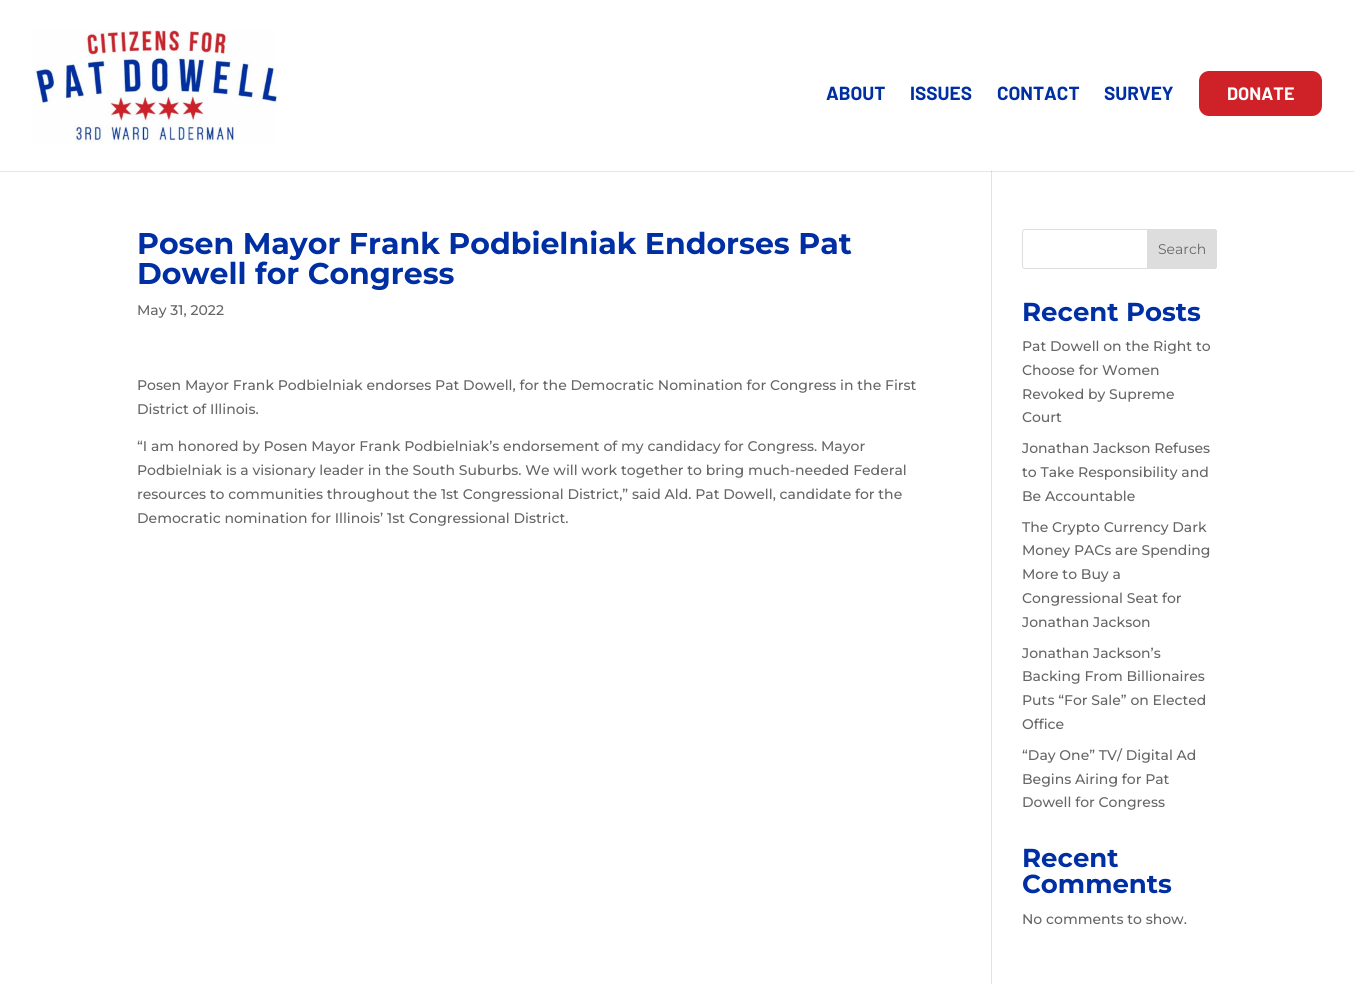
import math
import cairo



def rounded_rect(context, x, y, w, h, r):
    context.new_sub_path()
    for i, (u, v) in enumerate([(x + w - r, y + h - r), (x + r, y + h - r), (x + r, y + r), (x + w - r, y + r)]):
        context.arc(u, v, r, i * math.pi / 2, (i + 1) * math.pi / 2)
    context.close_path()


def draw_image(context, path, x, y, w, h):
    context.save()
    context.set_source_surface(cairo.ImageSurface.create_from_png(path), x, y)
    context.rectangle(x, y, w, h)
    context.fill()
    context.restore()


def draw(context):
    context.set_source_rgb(1, 1, 1)
    context.paint()
    context.set_source_rgb(230 / 255, 230 / 255, 230 / 255)
    context.rectangle(0, 171, 1354, 1)
    context.fill()
    draw_image(context, "images/1.png", 33, 30, 244, 114)
    context.set_source_rgb(207 / 255, 33 / 255, 40 / 255)
    rounded_rect(context, 1199, 71, 123, 45, 10)
    context.fill()
    context.set_source_rgb(226 / 255, 226 / 255, 226 / 255)
    context.rectangle(991, 171, 1, 813)
    context.fill()
    context.set_source_rgb(203 / 255, 203 / 255, 203 / 255)
    context.rectangle(991, 171, 1, 1)
    context.fill()
    rounded_rect(context, 1022.5, 229.5, 194, 39, 2.5)
    context.set_source_rgb(221 / 255, 221 / 255, 221 / 255)
    context.set_line_width(1)
    context.stroke()
    context.new_path()
    context.move_to(1147.5, 229.5)
    context.line_to(1214, 229.5)
    context.curve_to(1215.5, 229.5, 1216.5, 230.5, 1216.5, 232)
    context.line_to(1216.5, 266)
    context.curve_to(1216.5, 267.5, 1215.5, 268.5, 1214, 268.5)
    context.line_to(1147.5, 268.5)
    context.close_path()
    context.fill_preserve()
    context.stroke()
    context.select_font_face("Barlow", cairo.FontSlant.NORMAL, cairo.FontWeight.BOLD)
    context.set_font_size(19)
    context.set_source_rgb(0, 47 / 255, 163 / 255)
    context.move_to(826, 100)
    context.show_text("ABOUT")
    context.move_to(910, 100)
    context.show_text("ISSUES")
    context.move_to(997, 100)
    context.show_text("CONTACT")
    context.move_to(1104, 100)
    context.show_text("SURVEY")
    context.set_font_size(18)
    context.set_source_rgb(1, 1, 1)
    context.move_to(1227, 100)
    context.show_text("DONATE")
    context.select_font_face("Montserrat Thin")
    context.set_font_size(30)
    context.set_source_rgb(0, 47 / 255, 163 / 255)
    context.move_to(137, 254)
    context.show_text("Posen Mayor Frank Podbielniak Endorses Pat")
    context.move_to(137, 284)
    context.show_text("Dowell for Congress")
    context.select_font_face("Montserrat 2 Thin")
    context.set_font_size(14)
    context.set_source_rgb(102 / 255, 102 / 255, 102 / 255)
    context.move_to(137, 315)
    context.show_text("May 31, 2022")
    context.move_to(137, 390)
    context.show_text("Posen Mayor Frank Podbielniak endorses Pat Dowell, for the Democratic Nomination for Congress in the First")
    context.move_to(137, 414)
    context.show_text("District of Illinois.")
    context.move_to(137, 451)
    context.show_text("“I am honored by Posen Mayor Frank Podbielniak’s endorsement of my candidacy for Congress. Mayor")
    context.move_to(137, 475)
    context.show_text("Podbielniak is a visionary leader in the South Suburbs. We will work together to bring much-needed Federal")
    context.move_to(137, 499)
    context.show_text("resources to communities throughout the 1st Congressional District,” said Ald. Pat Dowell, candidate for the")
    context.move_to(137, 523)
    context.show_text("Democratic nomination for Illinois’ 1st Congressional District.")
    context.select_font_face("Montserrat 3 Thin")
    context.move_to(1158, 254)
    context.show_text("Search")
    context.select_font_face("Montserrat Thin")
    context.set_font_size(26)
    context.set_source_rgb(0, 47 / 255, 163 / 255)
    context.move_to(1022, 321)
    context.show_text("Recent Posts")
    context.select_font_face("Montserrat 2 Thin")
    context.set_font_size(14)
    context.set_source_rgb(102 / 255, 102 / 255, 102 / 255)
    context.move_to(1022, 351)
    context.show_text("Pat Dowell on the Right to")
    context.move_to(1022, 375)
    context.show_text("Choose for Women")
    context.move_to(1022, 399)
    context.show_text("Revoked by Supreme")
    context.move_to(1022, 422)
    context.show_text("Court")
    context.move_to(1022, 453)
    context.show_text("Jonathan Jackson Refuses")
    context.move_to(1022, 477)
    context.show_text("to Take Responsibility and")
    context.move_to(1022, 501)
    context.show_text("Be Accountable")
    context.move_to(1022, 532)
    context.show_text("The Crypto Currency Dark")
    context.move_to(1022, 555)
    context.show_text("Money PACs are Spending")
    context.move_to(1022, 579)
    context.show_text("More to Buy a")
    context.move_to(1022, 603)
    context.show_text("Congressional Seat for")
    context.move_to(1022, 627)
    context.show_text("Jonathan Jackson")
    context.move_to(1022, 658)
    context.show_text("Jonathan Jackson’s")
    context.move_to(1022, 681)
    context.show_text("Backing From Billionaires")
    context.move_to(1022, 705)
    context.show_text("Puts “For Sale” on Elected")
    context.move_to(1022, 729)
    context.show_text("Office")
    context.move_to(1022, 760)
    context.show_text("“Day One” TV/ Digital Ad")
    context.move_to(1022, 784)
    context.show_text("Begins Airing for Pat")
    context.move_to(1022, 807)
    context.show_text("Dowell for Congress")
    context.select_font_face("Montserrat Thin")
    context.set_font_size(26)
    context.set_source_rgb(0, 47 / 255, 163 / 255)
    context.move_to(1022, 867)
    context.show_text("Recent")
    context.move_to(1022, 893)
    context.show_text("Comments")
    context.select_font_face("Montserrat 2 Thin")
    context.set_font_size(14)
    context.set_source_rgb(102 / 255, 102 / 255, 102 / 255)
    context.move_to(1022, 924)
    context.show_text("No comments to show.")


surface = cairo.ImageSurface(cairo.Format.RGB24, 1354, 984)
context = cairo.Context(surface)
options = cairo.FontOptions()
options.set_hint_metrics(cairo.HintMetrics.OFF)
options.set_hint_style(cairo.HintStyle.NONE)
context.set_font_options(options)
context.set_miter_limit(4)
draw(context)
surface.write_to_png("out.png")
